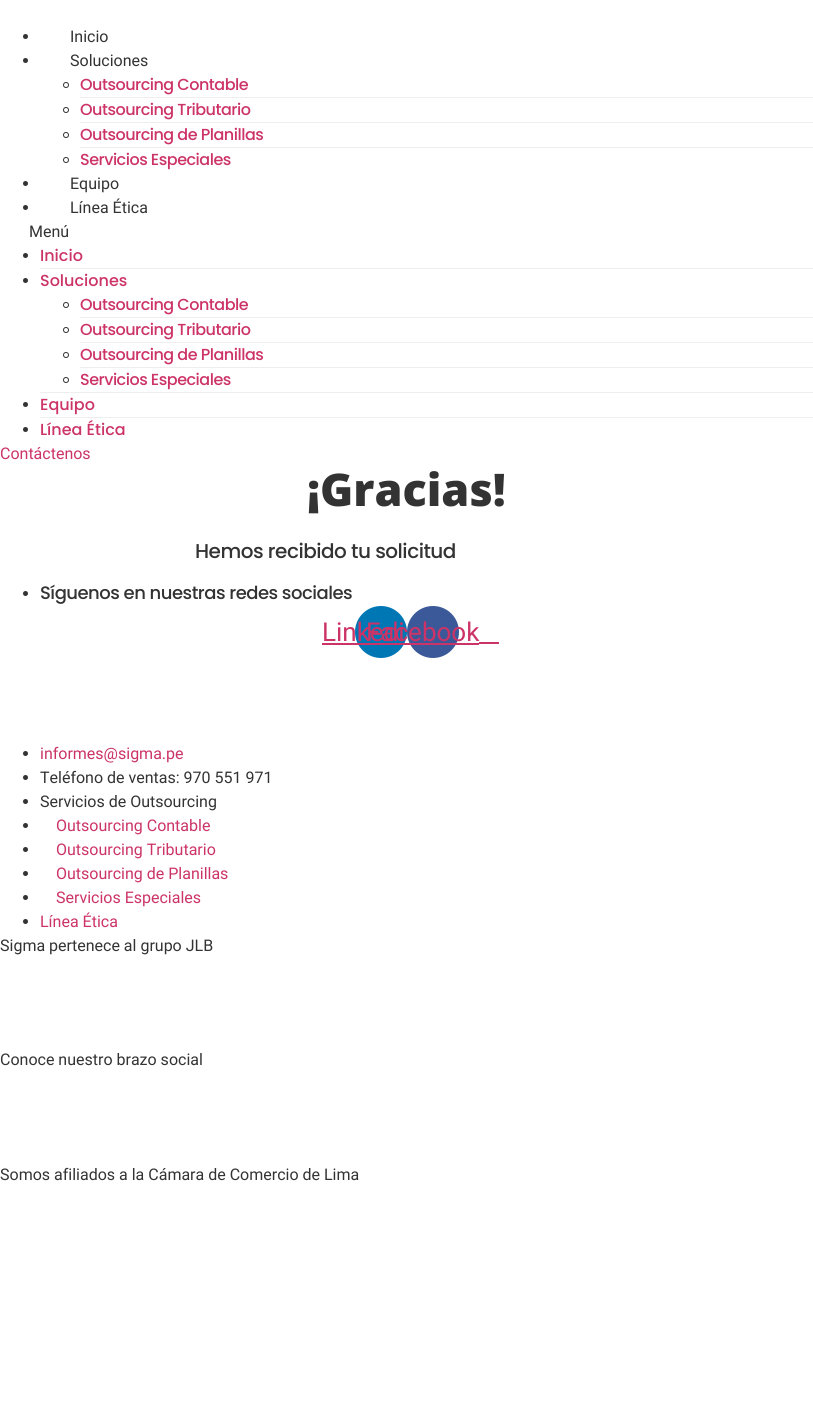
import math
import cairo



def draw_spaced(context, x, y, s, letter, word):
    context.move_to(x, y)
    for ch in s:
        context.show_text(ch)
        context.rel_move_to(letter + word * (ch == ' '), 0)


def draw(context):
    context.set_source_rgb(1, 1, 1)
    context.paint()
    context.set_source_rgb(51 / 255, 51 / 255, 51 / 255)
    context.arc(25.5, 36.5, 2.5, 0, 2 * math.pi)
    context.fill()
    context.arc(25.5, 60.5, 2.5, 0, 2 * math.pi)
    context.fill()
    context.set_source_rgb(238 / 255, 238 / 255, 238 / 255)
    context.rectangle(80, 97, 733, 1)
    context.fill()
    context.arc(66, 85, 2.5, 0, 2 * math.pi)
    context.set_source_rgb(51 / 255, 51 / 255, 51 / 255)
    context.set_line_width(1)
    context.stroke()
    context.set_source_rgb(238 / 255, 238 / 255, 238 / 255)
    context.rectangle(80, 122, 733, 1)
    context.fill()
    context.arc(66, 110, 2.5, 0, 2 * math.pi)
    context.set_source_rgb(51 / 255, 51 / 255, 51 / 255)
    context.stroke()
    context.set_source_rgb(238 / 255, 238 / 255, 238 / 255)
    context.rectangle(80, 147, 733, 1)
    context.fill()
    context.arc(66, 135, 2.5, 0, 2 * math.pi)
    context.set_source_rgb(51 / 255, 51 / 255, 51 / 255)
    context.stroke()
    context.arc(66, 160, 2.5, 0, 2 * math.pi)
    context.stroke()
    context.arc(25.5, 183.5, 2.5, 0, 2 * math.pi)
    context.fill()
    context.arc(25.5, 207.5, 2.5, 0, 2 * math.pi)
    context.fill()
    context.set_source_rgb(238 / 255, 238 / 255, 238 / 255)
    context.rectangle(40, 268, 773, 1)
    context.fill()
    context.set_source_rgb(51 / 255, 51 / 255, 51 / 255)
    context.arc(25.5, 255.5, 2.5, 0, 2 * math.pi)
    context.fill()
    context.set_source_rgb(238 / 255, 238 / 255, 238 / 255)
    context.rectangle(40, 392, 773, 1)
    context.fill()
    context.set_source_rgb(51 / 255, 51 / 255, 51 / 255)
    context.arc(25.5, 280.5, 2.5, 0, 2 * math.pi)
    context.fill()
    context.set_source_rgb(238 / 255, 238 / 255, 238 / 255)
    context.rectangle(80, 317, 733, 1)
    context.fill()
    context.arc(66, 305, 2.5, 0, 2 * math.pi)
    context.set_source_rgb(51 / 255, 51 / 255, 51 / 255)
    context.stroke()
    context.set_source_rgb(238 / 255, 238 / 255, 238 / 255)
    context.rectangle(80, 342, 733, 1)
    context.fill()
    context.arc(66, 330, 2.5, 0, 2 * math.pi)
    context.set_source_rgb(51 / 255, 51 / 255, 51 / 255)
    context.stroke()
    context.set_source_rgb(238 / 255, 238 / 255, 238 / 255)
    context.rectangle(80, 367, 733, 1)
    context.fill()
    context.arc(66, 355, 2.5, 0, 2 * math.pi)
    context.set_source_rgb(51 / 255, 51 / 255, 51 / 255)
    context.stroke()
    context.arc(66, 380, 2.5, 0, 2 * math.pi)
    context.stroke()
    context.set_source_rgb(238 / 255, 238 / 255, 238 / 255)
    context.rectangle(40, 417, 773, 1)
    context.fill()
    context.set_source_rgb(51 / 255, 51 / 255, 51 / 255)
    context.arc(25.5, 404.5, 2.5, 0, 2 * math.pi)
    context.fill()
    context.arc(25.5, 429.5, 2.5, 0, 2 * math.pi)
    context.fill()
    context.arc(25.5, 593.5, 2.5, 0, 2 * math.pi)
    context.fill()
    context.set_source_rgb(0, 119 / 255, 181 / 255)
    context.arc(381, 632, 26, 0, 2 * math.pi)
    context.fill()
    context.set_source_rgb(204 / 255, 51 / 255, 102 / 255)
    context.rectangle(322, 643, 44, 2)
    context.fill()
    context.set_source_rgb(59 / 255, 89 / 255, 152 / 255)
    context.arc(433, 632, 26, 0, 2 * math.pi)
    context.fill()
    context.set_source_rgb(204 / 255, 51 / 255, 102 / 255)
    context.rectangle(366, 643, 113, 2)
    context.fill()
    context.rectangle(479, 642, 20, 2)
    context.fill()
    context.set_source_rgb(51 / 255, 51 / 255, 51 / 255)
    context.arc(25.5, 753.5, 2.5, 0, 2 * math.pi)
    context.fill()
    context.arc(25.5, 777.5, 2.5, 0, 2 * math.pi)
    context.fill()
    context.arc(25.5, 801.5, 2.5, 0, 2 * math.pi)
    context.fill()
    context.arc(25.5, 825.5, 2.5, 0, 2 * math.pi)
    context.fill()
    context.arc(25.5, 849.5, 2.5, 0, 2 * math.pi)
    context.fill()
    context.arc(25.5, 873.5, 2.5, 0, 2 * math.pi)
    context.fill()
    context.arc(25.5, 897.5, 2.5, 0, 2 * math.pi)
    context.fill()
    context.arc(25.5, 921.5, 2.5, 0, 2 * math.pi)
    context.fill()
    context.select_font_face("Roboto")
    context.set_font_size(16)
    context.move_to(70, 42)
    context.show_text("Inicio")
    context.move_to(70, 66)
    context.show_text("Soluciones")
    context.select_font_face("Poppins Medium")
    context.set_source_rgb(204 / 255, 51 / 255, 102 / 255)
    draw_spaced(context, 80, 90, "Outsourcing Contable", -0.5, 0)
    draw_spaced(context, 80, 115, "Outsourcing Tributario", -0.5, 0)
    draw_spaced(context, 80, 140, "Outsourcing de Planillas", -0.5, 0)
    draw_spaced(context, 80, 165, "Servicios Especiales", -0.5, 0)
    context.select_font_face("Roboto")
    context.set_source_rgb(51 / 255, 51 / 255, 51 / 255)
    context.move_to(70, 189)
    context.show_text("Equipo")
    context.move_to(70, 213)
    context.show_text("Línea Ética")
    context.move_to(29, 237)
    context.show_text("Menú")
    context.select_font_face("Poppins Medium")
    context.set_source_rgb(204 / 255, 51 / 255, 102 / 255)
    context.move_to(40, 261)
    context.show_text("Inicio")
    context.move_to(40, 286)
    context.show_text("Soluciones")
    draw_spaced(context, 80, 310, "Outsourcing Contable", -0.5, 0)
    draw_spaced(context, 80, 335, "Outsourcing Tributario", -0.5, 0)
    draw_spaced(context, 80, 360, "Outsourcing de Planillas", -0.5, 0)
    draw_spaced(context, 80, 385, "Servicios Especiales", -0.5, 0)
    context.move_to(40, 410)
    context.show_text("Equipo")
    context.move_to(40, 435)
    context.show_text("Línea Ética")
    context.select_font_face("Roboto")
    context.move_to(0, 459)
    context.show_text("Contáctenos")
    context.select_font_face("Noto Sans Black")
    context.set_font_size(45)
    context.set_source_rgb(51 / 255, 51 / 255, 51 / 255)
    context.move_to(307, 506)
    context.show_text("¡Gracias!")
    context.select_font_face("Poppins Medium")
    context.set_font_size(20)
    draw_spaced(context, 195, 558, "Hemos recibido tu solicitud", -0.5, 0)
    context.set_font_size(18)
    draw_spaced(context, 40, 599, "Síguenos en nuestras redes sociales", -0.5, 0)
    context.select_font_face("Roboto")
    context.set_font_size(26)
    context.set_source_rgb(204 / 255, 51 / 255, 102 / 255)
    context.move_to(322, 641)
    context.show_text("Linkedi")
    context.move_to(366, 641)
    context.show_text("Facebook")
    context.set_font_size(16)
    context.move_to(40, 759)
    context.show_text("informes@sigma.pe")
    context.set_source_rgb(51 / 255, 51 / 255, 51 / 255)
    context.move_to(40, 783)
    context.show_text("Teléfono de ventas: 970 551 971")
    context.move_to(40, 807)
    context.show_text("Servicios de Outsourcing")
    context.set_source_rgb(204 / 255, 51 / 255, 102 / 255)
    context.move_to(56, 831)
    context.show_text("Outsourcing Contable")
    context.move_to(56, 855)
    context.show_text("Outsourcing Tributario")
    context.move_to(56, 879)
    context.show_text("Outsourcing de Planillas")
    context.move_to(56, 903)
    context.show_text("Servicios Especiales")
    context.move_to(40, 927)
    context.show_text("Línea Ética")
    context.set_source_rgb(51 / 255, 51 / 255, 51 / 255)
    context.move_to(0, 951)
    context.show_text("Sigma pertenece al grupo JLB")
    context.move_to(0, 1065)
    context.show_text("Conoce nuestro brazo social")
    context.move_to(0, 1180)
    context.show_text("Somos afiliados a la Cámara de Comercio de Lima")


surface = cairo.ImageSurface(cairo.Format.RGB24, 813, 1419)
context = cairo.Context(surface)
options = cairo.FontOptions()
options.set_hint_metrics(cairo.HintMetrics.OFF)
options.set_hint_style(cairo.HintStyle.NONE)
context.set_font_options(options)
context.set_miter_limit(4)
draw(context)
surface.write_to_png("out.png")
